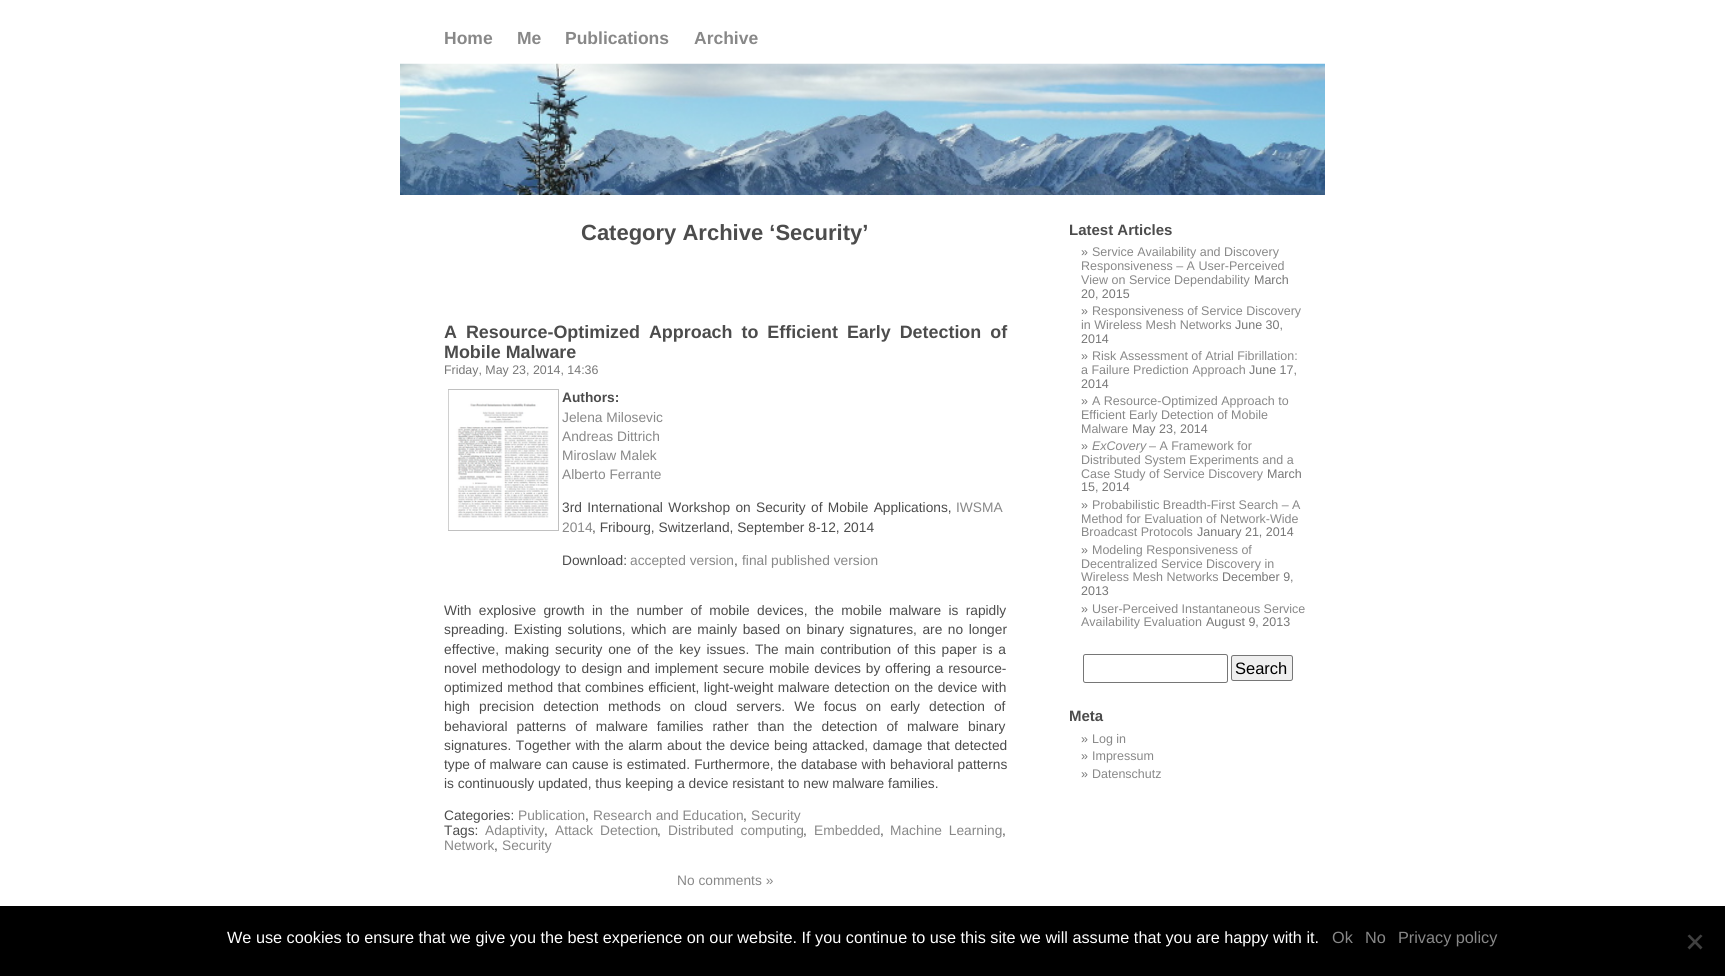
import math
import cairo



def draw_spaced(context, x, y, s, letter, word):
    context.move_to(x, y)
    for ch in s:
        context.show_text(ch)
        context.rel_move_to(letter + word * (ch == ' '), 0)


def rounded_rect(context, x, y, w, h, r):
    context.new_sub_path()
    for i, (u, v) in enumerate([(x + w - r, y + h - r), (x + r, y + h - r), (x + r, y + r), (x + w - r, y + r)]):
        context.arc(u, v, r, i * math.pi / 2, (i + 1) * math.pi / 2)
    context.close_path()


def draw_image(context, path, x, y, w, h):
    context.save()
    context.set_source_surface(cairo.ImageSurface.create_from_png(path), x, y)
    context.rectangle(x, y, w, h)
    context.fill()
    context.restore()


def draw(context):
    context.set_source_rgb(1, 1, 1)
    context.paint()
    draw_image(context, "images/1.png", 400, 63, 925, 132)
    context.rectangle(448.5, 389.5, 110, 141)
    context.set_source_rgb(192 / 255, 192 / 255, 192 / 255)
    context.set_line_width(1)
    context.stroke()
    draw_image(context, "images/2.png", 448, 390, 101, 140)
    rounded_rect(context, 1083.5, 654.5, 144, 28, 2)
    context.set_source_rgb(118 / 255, 118 / 255, 118 / 255)
    context.stroke()
    context.set_source_rgb(239 / 255, 239 / 255, 239 / 255)
    rounded_rect(context, 1231.5, 655.5, 61, 25, 2)
    context.fill_preserve()
    context.set_source_rgb(118 / 255, 118 / 255, 118 / 255)
    context.stroke()
    context.set_source_rgb(0, 0, 0)
    context.rectangle(0, 906, 1725, 70)
    context.fill()
    context.set_source_rgb(64 / 255, 64 / 255, 64 / 255)
    context.new_path()
    context.move_to(1700.5, 934.5)
    context.line_to(1702.5, 936)
    context.line_to(1689.5, 949.5)
    context.line_to(1687.5, 947.5)
    context.close_path()
    context.fill()
    context.new_path()
    context.move_to(1687.5, 936)
    context.line_to(1689.5, 934.5)
    context.line_to(1702.5, 947.5)
    context.line_to(1700.5, 949.5)
    context.close_path()
    context.fill()
    context.select_font_face("Liberation Sans", cairo.FontSlant.NORMAL, cairo.FontWeight.BOLD)
    context.set_font_size(17.5)
    context.set_source_rgb(136 / 255, 136 / 255, 136 / 255)
    context.move_to(444, 44)
    context.show_text("Home")
    context.move_to(517, 44)
    context.show_text("Me")
    context.move_to(565, 44)
    context.show_text("Publications")
    context.move_to(694, 44)
    context.show_text("Archive")
    context.set_font_size(22)
    context.set_source_rgb(76 / 255, 76 / 255, 76 / 255)
    context.move_to(581, 240)
    context.show_text("Category Archive ‘Security’")
    context.set_font_size(17.9)
    draw_spaced(context, 444, 338, "A Resource-Optimized Approach to Efficient Early Detection of", 0, 4)
    context.move_to(444, 358)
    context.show_text("Mobile Malware")
    context.select_font_face("Liberation Sans")
    context.set_font_size(12.4)
    context.set_source_rgb(119 / 255, 119 / 255, 119 / 255)
    context.move_to(444, 374)
    context.show_text("Friday, May 23, 2014, 14:36")
    context.select_font_face("Liberation Sans", cairo.FontSlant.NORMAL, cairo.FontWeight.BOLD)
    context.set_font_size(13.75)
    context.set_source_rgb(76 / 255, 76 / 255, 76 / 255)
    context.move_to(562, 402)
    context.show_text("Authors:")
    context.select_font_face("Liberation Sans")
    context.set_source_rgb(136 / 255, 136 / 255, 136 / 255)
    context.move_to(562, 422)
    context.show_text("Jelena Milosevic")
    context.move_to(562, 441)
    context.show_text("Andreas Dittrich")
    context.move_to(562, 460)
    context.show_text("Miroslaw Malek")
    context.move_to(562, 479)
    context.show_text("Alberto Ferrante")
    context.set_source_rgb(76 / 255, 76 / 255, 76 / 255)
    draw_spaced(context, 562, 512, "3rd International Workshop on Security of Mobile Applications,", 0, 1.5)
    context.set_source_rgb(136 / 255, 136 / 255, 136 / 255)
    context.move_to(956, 512)
    context.show_text("IWSMA")
    context.move_to(562, 532)
    context.show_text("2014")
    context.set_source_rgb(76 / 255, 76 / 255, 76 / 255)
    context.move_to(592, 532)
    context.show_text(", Fribourg, Switzerland, September 8-12, 2014")
    context.move_to(562, 565)
    context.show_text("Download:")
    context.set_source_rgb(136 / 255, 136 / 255, 136 / 255)
    context.move_to(630, 565)
    context.show_text("accepted version")
    context.set_source_rgb(76 / 255, 76 / 255, 76 / 255)
    context.move_to(734, 565)
    context.show_text(",")
    context.set_source_rgb(136 / 255, 136 / 255, 136 / 255)
    context.move_to(742, 565)
    context.show_text("final published version")
    context.set_source_rgb(76 / 255, 76 / 255, 76 / 255)
    draw_spaced(context, 444, 615, "With explosive growth in the number of mobile devices, the mobile malware is rapidly", 0, 3.5)
    draw_spaced(context, 444, 634, "spreading. Existing solutions, which are mainly based on binary signatures, are no longer", 0, 1.75)
    draw_spaced(context, 444, 654, "effective, making security one of the key issues. The main contribution of this paper is a", 0, 2)
    draw_spaced(context, 444, 673, "novel methodology to design and implement secure mobile devices by offering a resource-", 0, 1)
    draw_spaced(context, 444, 692, "optimized method that combines efficient, light-weight malware detection on the device with", 0, 0.6)
    draw_spaced(context, 444, 711, "high precision detection methods on cloud servers. We focus on early detection of", 0, 5.25)
    draw_spaced(context, 444, 731, "behavioral patterns of malware families rather than the detection of malware binary", 0, 5.25)
    draw_spaced(context, 444, 750, "signatures. Together with the alarm about the device being attacked, damage that detected", 0, 0.75)
    draw_spaced(context, 444, 769, "type of malware can cause is estimated. Furthermore, the database with behavioral patterns", 0, 0.25)
    context.move_to(444, 788)
    context.show_text("is continuously updated, thus keeping a device resistant to new malware families.")
    context.move_to(444, 820)
    context.show_text("Categories:")
    context.set_source_rgb(136 / 255, 136 / 255, 136 / 255)
    context.move_to(518, 820)
    context.show_text("Publication")
    context.set_source_rgb(76 / 255, 76 / 255, 76 / 255)
    context.move_to(585, 820)
    context.show_text(",")
    context.set_source_rgb(136 / 255, 136 / 255, 136 / 255)
    context.move_to(593, 820)
    context.show_text("Research and Education")
    context.set_source_rgb(76 / 255, 76 / 255, 76 / 255)
    context.move_to(743, 820)
    context.show_text(",")
    context.set_source_rgb(136 / 255, 136 / 255, 136 / 255)
    context.move_to(751, 820)
    context.show_text("Security")
    context.set_source_rgb(76 / 255, 76 / 255, 76 / 255)
    context.move_to(444, 835)
    context.show_text("Tags:")
    context.set_source_rgb(136 / 255, 136 / 255, 136 / 255)
    context.move_to(485, 835)
    context.show_text("Adaptivity")
    context.set_source_rgb(76 / 255, 76 / 255, 76 / 255)
    context.move_to(544, 835)
    context.show_text(",")
    context.set_source_rgb(136 / 255, 136 / 255, 136 / 255)
    draw_spaced(context, 555, 835, "Attack Detection", 0, 3)
    context.set_source_rgb(76 / 255, 76 / 255, 76 / 255)
    context.move_to(657, 835)
    context.show_text(",")
    context.set_source_rgb(136 / 255, 136 / 255, 136 / 255)
    draw_spaced(context, 668, 835, "Distributed computing", 0, 3)
    context.set_source_rgb(76 / 255, 76 / 255, 76 / 255)
    context.move_to(803, 835)
    context.show_text(",")
    context.set_source_rgb(136 / 255, 136 / 255, 136 / 255)
    context.move_to(814, 835)
    context.show_text("Embedded")
    context.set_source_rgb(76 / 255, 76 / 255, 76 / 255)
    context.move_to(880, 835)
    context.show_text(",")
    context.set_source_rgb(136 / 255, 136 / 255, 136 / 255)
    draw_spaced(context, 890, 835, "Machine Learning", 0, 3)
    context.set_source_rgb(76 / 255, 76 / 255, 76 / 255)
    context.move_to(1002, 835)
    context.show_text(",")
    context.set_source_rgb(136 / 255, 136 / 255, 136 / 255)
    context.move_to(444, 850)
    context.show_text("Network")
    context.set_source_rgb(76 / 255, 76 / 255, 76 / 255)
    context.move_to(494, 850)
    context.show_text(",")
    context.set_source_rgb(136 / 255, 136 / 255, 136 / 255)
    context.move_to(502, 850)
    context.show_text("Security")
    context.move_to(677, 885)
    context.show_text("No comments »")
    context.select_font_face("Liberation Sans", cairo.FontSlant.NORMAL, cairo.FontWeight.BOLD)
    context.set_font_size(15)
    context.set_source_rgb(76 / 255, 76 / 255, 76 / 255)
    context.move_to(1069, 235)
    context.show_text("Latest Articles")
    context.select_font_face("Liberation Sans")
    context.set_font_size(12.5)
    context.set_source_rgb(119 / 255, 119 / 255, 119 / 255)
    context.move_to(1081, 256)
    context.show_text("»")
    context.set_source_rgb(136 / 255, 136 / 255, 136 / 255)
    context.move_to(1092, 256)
    context.show_text("Service Availability and Discovery")
    context.move_to(1081, 270)
    context.show_text("Responsiveness – A User-Perceived")
    context.move_to(1081, 284)
    context.show_text("View on Service Dependability")
    context.set_source_rgb(119 / 255, 119 / 255, 119 / 255)
    context.move_to(1254, 284)
    context.show_text("March")
    context.move_to(1081, 298)
    context.show_text("20, 2015")
    context.move_to(1081, 315)
    context.show_text("»")
    context.set_source_rgb(136 / 255, 136 / 255, 136 / 255)
    context.move_to(1092, 315)
    context.show_text("Responsiveness of Service Discovery")
    context.move_to(1081, 329)
    context.show_text("in Wireless Mesh Networks")
    context.set_source_rgb(119 / 255, 119 / 255, 119 / 255)
    context.move_to(1235, 329)
    context.show_text("June 30,")
    context.move_to(1081, 343)
    context.show_text("2014")
    context.move_to(1081, 360)
    context.show_text("»")
    context.set_source_rgb(136 / 255, 136 / 255, 136 / 255)
    context.move_to(1092, 360)
    context.show_text("Risk Assessment of Atrial Fibrillation:")
    context.move_to(1081, 374)
    context.show_text("a Failure Prediction Approach")
    context.set_source_rgb(119 / 255, 119 / 255, 119 / 255)
    context.move_to(1249, 374)
    context.show_text("June 17,")
    context.move_to(1081, 388)
    context.show_text("2014")
    context.move_to(1081, 405)
    context.show_text("»")
    context.set_source_rgb(136 / 255, 136 / 255, 136 / 255)
    context.move_to(1092, 405)
    context.show_text("A Resource-Optimized Approach to")
    context.move_to(1081, 419)
    context.show_text("Efficient Early Detection of Mobile")
    context.move_to(1081, 433)
    context.show_text("Malware")
    context.set_source_rgb(119 / 255, 119 / 255, 119 / 255)
    context.move_to(1132, 433)
    context.show_text("May 23, 2014")
    context.move_to(1081, 450)
    context.show_text("»")
    context.select_font_face("Liberation Sans", cairo.FontSlant.ITALIC)
    context.set_source_rgb(136 / 255, 136 / 255, 136 / 255)
    context.move_to(1092, 450)
    context.show_text("ExCovery")
    context.select_font_face("Liberation Sans")
    context.move_to(1149, 450)
    context.show_text("– A Framework for")
    context.move_to(1081, 464)
    context.show_text("Distributed System Experiments and a")
    context.move_to(1081, 478)
    context.show_text("Case Study of Service Discovery")
    context.set_source_rgb(119 / 255, 119 / 255, 119 / 255)
    context.move_to(1267, 478)
    context.show_text("March")
    context.move_to(1081, 491)
    context.show_text("15, 2014")
    context.move_to(1081, 509)
    context.show_text("»")
    context.set_source_rgb(136 / 255, 136 / 255, 136 / 255)
    context.move_to(1092, 509)
    context.show_text("Probabilistic Breadth-First Search – A")
    context.move_to(1081, 523)
    context.show_text("Method for Evaluation of Network-Wide")
    context.move_to(1081, 536)
    context.show_text("Broadcast Protocols")
    context.set_source_rgb(119 / 255, 119 / 255, 119 / 255)
    context.move_to(1197, 536)
    context.show_text("January 21, 2014")
    context.move_to(1081, 554)
    context.show_text("»")
    context.set_source_rgb(136 / 255, 136 / 255, 136 / 255)
    context.move_to(1092, 554)
    context.show_text("Modeling Responsiveness of")
    context.move_to(1081, 568)
    context.show_text("Decentralized Service Discovery in")
    context.move_to(1081, 581)
    context.show_text("Wireless Mesh Networks")
    context.set_source_rgb(119 / 255, 119 / 255, 119 / 255)
    context.move_to(1222, 581)
    context.show_text("December 9,")
    context.move_to(1081, 595)
    context.show_text("2013")
    context.move_to(1081, 613)
    context.show_text("»")
    context.set_source_rgb(136 / 255, 136 / 255, 136 / 255)
    context.move_to(1092, 613)
    context.show_text("User-Perceived Instantaneous Service")
    context.move_to(1081, 626)
    context.show_text("Availability Evaluation")
    context.set_source_rgb(119 / 255, 119 / 255, 119 / 255)
    context.move_to(1206, 626)
    context.show_text("August 9, 2013")
    context.set_font_size(16.5)
    context.set_source_rgb(0, 0, 0)
    context.move_to(1235, 674)
    context.show_text("Search")
    context.select_font_face("Liberation Sans", cairo.FontSlant.NORMAL, cairo.FontWeight.BOLD)
    context.set_font_size(15)
    context.set_source_rgb(76 / 255, 76 / 255, 76 / 255)
    context.move_to(1069, 721)
    context.show_text("Meta")
    context.select_font_face("Liberation Sans")
    context.set_font_size(12.5)
    context.set_source_rgb(119 / 255, 119 / 255, 119 / 255)
    context.move_to(1081, 743)
    context.show_text("»")
    context.set_source_rgb(136 / 255, 136 / 255, 136 / 255)
    context.move_to(1092, 743)
    context.show_text("Log in")
    context.set_source_rgb(119 / 255, 119 / 255, 119 / 255)
    context.move_to(1081, 760)
    context.show_text("»")
    context.set_source_rgb(136 / 255, 136 / 255, 136 / 255)
    context.move_to(1092, 760)
    context.show_text("Impressum")
    context.set_source_rgb(119 / 255, 119 / 255, 119 / 255)
    context.move_to(1081, 778)
    context.show_text("»")
    context.set_source_rgb(136 / 255, 136 / 255, 136 / 255)
    context.move_to(1092, 778)
    context.show_text("Datenschutz")
    context.set_font_size(16.25)
    context.set_source_rgb(1, 1, 1)
    context.move_to(227, 943)
    context.show_text("We use cookies to ensure that we give you the best experience on our website. If you continue to use this site we will assume that you are happy with it.")
    context.set_source_rgb(136 / 255, 136 / 255, 136 / 255)
    context.move_to(1332, 943)
    context.show_text("Ok")
    context.move_to(1365, 943)
    context.show_text("No")
    context.move_to(1398, 943)
    context.show_text("Privacy policy")


surface = cairo.ImageSurface(cairo.Format.RGB24, 1725, 976)
context = cairo.Context(surface)
options = cairo.FontOptions()
options.set_hint_metrics(cairo.HintMetrics.OFF)
options.set_hint_style(cairo.HintStyle.NONE)
context.set_font_options(options)
context.set_miter_limit(4)
draw(context)
surface.write_to_png("out.png")
